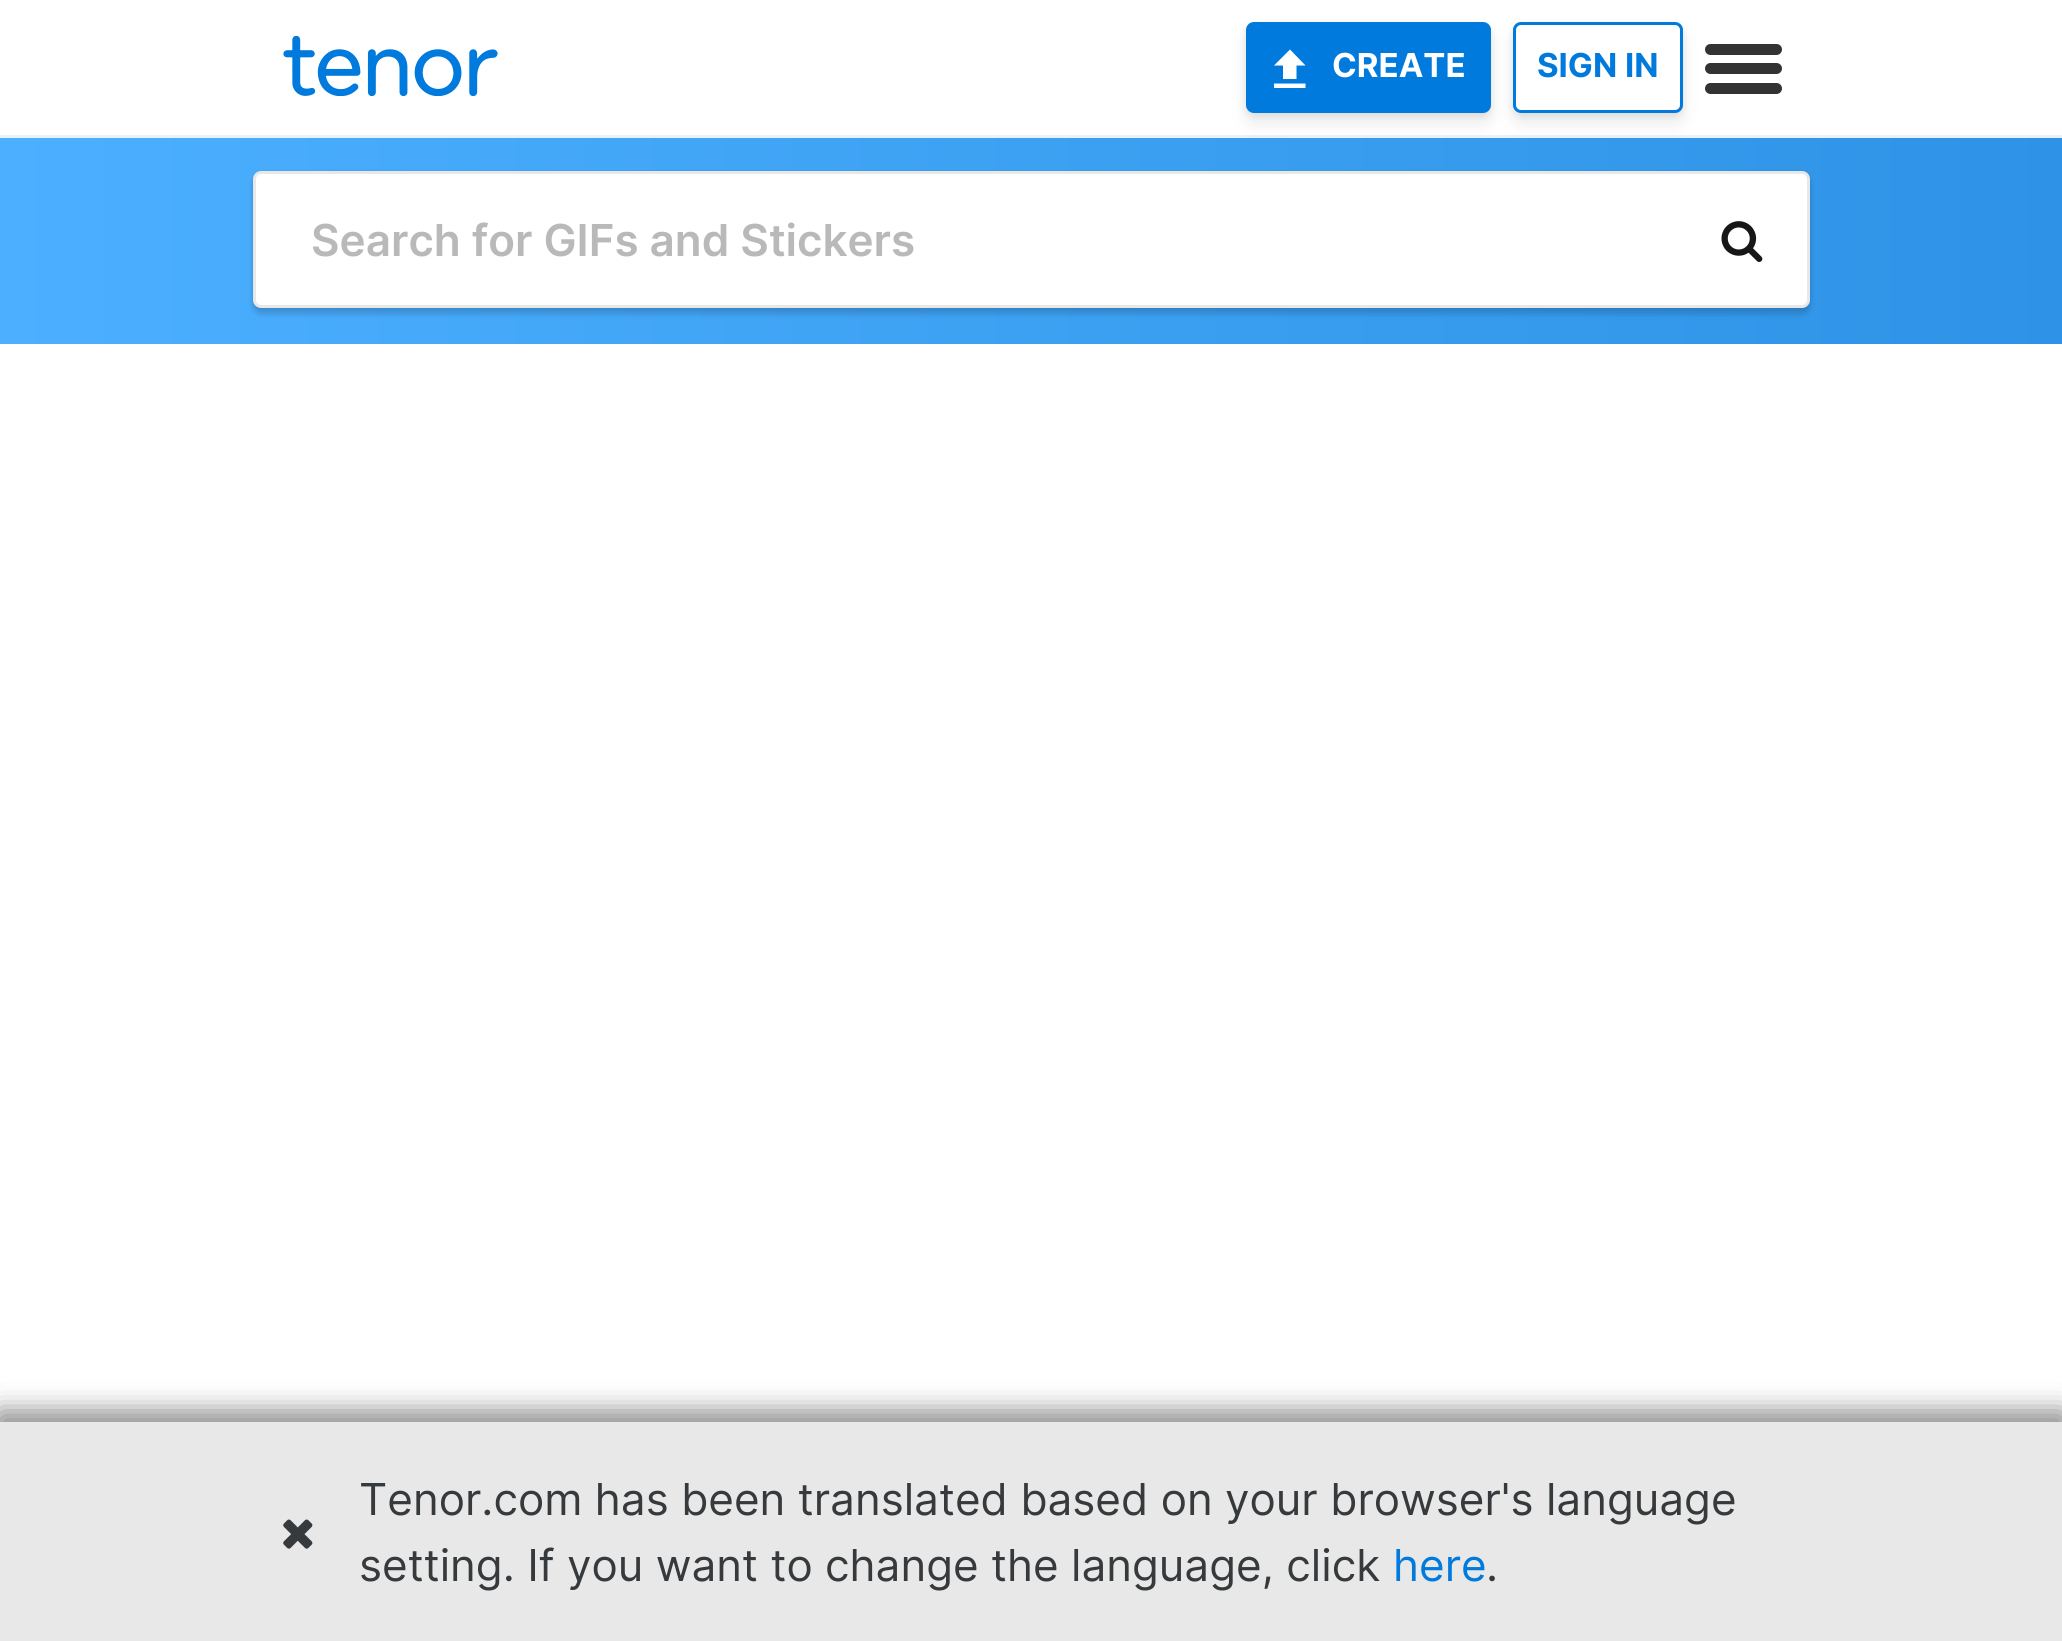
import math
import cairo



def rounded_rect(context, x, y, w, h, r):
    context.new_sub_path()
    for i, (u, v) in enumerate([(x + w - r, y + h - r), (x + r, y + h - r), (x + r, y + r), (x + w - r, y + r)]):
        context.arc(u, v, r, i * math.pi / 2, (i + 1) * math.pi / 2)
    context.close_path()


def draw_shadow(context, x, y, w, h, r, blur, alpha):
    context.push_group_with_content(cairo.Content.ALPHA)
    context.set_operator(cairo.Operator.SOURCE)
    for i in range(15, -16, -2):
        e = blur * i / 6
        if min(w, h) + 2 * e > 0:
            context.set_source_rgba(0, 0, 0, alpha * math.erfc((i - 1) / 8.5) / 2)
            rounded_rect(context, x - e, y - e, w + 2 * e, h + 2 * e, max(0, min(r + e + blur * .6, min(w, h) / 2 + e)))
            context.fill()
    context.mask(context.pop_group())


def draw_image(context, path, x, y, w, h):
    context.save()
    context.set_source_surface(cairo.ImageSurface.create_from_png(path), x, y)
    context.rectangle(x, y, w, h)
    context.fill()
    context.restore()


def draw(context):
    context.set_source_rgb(1, 1, 1)
    context.paint()
    context.set_source_rgb(235 / 255, 242 / 255, 247 / 255)
    context.rectangle(0, 135, 2062, 3)
    context.fill()
    draw_image(context, "images/1.png", 283, 36, 215, 60)
    context.set_source_rgb(83 / 255, 83 / 255, 92 / 255)
    draw_shadow(context, 1246, 33, 245, 91, 8, 8, 0.11)
    context.set_source_rgb(0, 0, 0)
    draw_shadow(context, 1246, 25, 245, 91, 8, 4, 0.08)
    context.set_source_rgb(0, 122 / 255, 221 / 255)
    rounded_rect(context, 1247.5, 23.5, 242, 88, 6.5)
    context.fill_preserve()
    context.set_line_width(3)
    context.stroke()
    context.set_source_rgb(1, 1, 1)
    context.new_path()
    context.move_to(1283, 79)
    context.line_to(1296.5, 79)
    context.line_to(1296.5, 65.5)
    context.line_to(1305.5, 65.5)
    context.line_to(1290, 49.5)
    context.line_to(1274, 65.5)
    context.line_to(1283, 65.5)
    context.close_path()
    context.move_to(1274, 83.5)
    context.line_to(1305.5, 83.5)
    context.line_to(1305.5, 88)
    context.line_to(1274, 88)
    context.close_path()
    context.fill()
    context.set_source_rgb(83 / 255, 83 / 255, 92 / 255)
    draw_shadow(context, 1513, 33, 170, 91, 8, 8, 0.11)
    context.set_source_rgb(0, 0, 0)
    draw_shadow(context, 1513, 25, 170, 91, 8, 4, 0.08)
    context.set_source_rgb(1, 1, 1)
    rounded_rect(context, 1514.5, 23.5, 167, 88, 6.5)
    context.fill_preserve()
    context.set_source_rgb(0, 122 / 255, 221 / 255)
    context.stroke()
    context.set_source_rgb(51 / 255, 51 / 255, 51 / 255)
    rounded_rect(context, 1705, 63, 77, 11, 5.5)
    context.fill()
    rounded_rect(context, 1705, 44, 77, 11, 5.5)
    context.fill()
    rounded_rect(context, 1705, 83, 77, 11, 5.5)
    context.fill()
    gradient = cairo.LinearGradient(0, 241, 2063, 241)
    gradient.add_color_stop_rgba(0, 76 / 255, 175 / 255, 1, 1)
    gradient.add_color_stop_rgba(1, 46 / 255, 147 / 255, 230 / 255, 1)
    context.set_source(gradient)
    context.rectangle(0, 138, 2062, 206)
    context.fill()
    context.set_source_rgb(0, 0, 0)
    draw_shadow(context, 253, 171, 1557, 137, 8, 1.5, 0.08)
    draw_shadow(context, 253, 176, 1557, 138, 8, 3, 0.16)
    context.set_source_rgb(1, 1, 1)
    rounded_rect(context, 254.5, 172.5, 1554, 134, 6.5)
    context.fill_preserve()
    context.set_source_rgb(232 / 255, 232 / 255, 232 / 255)
    context.stroke()
    draw_image(context, "images/2.png", 1721, 221, 42, 41)
    context.set_source_rgb(153 / 255, 153 / 255, 153 / 255)
    draw_shadow(context, 0, 1416, 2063, 220, 0, 14, 1)
    draw_shadow(context, 0, 1416, 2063, 220, 0, 14, 1)
    context.set_source_rgb(232 / 255, 232 / 255, 232 / 255)
    context.rectangle(0, 1422, 2062, 219)
    context.fill()
    draw_image(context, "images/3.png", 283, 1519, 30, 30)
    context.select_font_face("Inter", cairo.FontSlant.NORMAL, cairo.FontWeight.BOLD)
    context.set_font_size(33)
    context.set_source_rgb(1, 1, 1)
    context.move_to(1332, 77)
    context.show_text("CREATE")
    context.set_source_rgb(0, 122 / 255, 221 / 255)
    context.move_to(1537, 77)
    context.show_text("SIGN IN")
    context.select_font_face("Inter SemiBold")
    context.set_font_size(44)
    context.set_source_rgb(185 / 255, 185 / 255, 185 / 255)
    context.move_to(311, 256)
    context.show_text("Search for GIFs and Stickers")
    context.select_font_face("Inter")
    context.set_source_rgb(55 / 255, 58 / 255, 60 / 255)
    context.move_to(359, 1515)
    context.show_text("Tenor.com has been translated based on your browser's language")
    context.move_to(359, 1581)
    context.show_text("setting. If you want to change the language, click")
    context.set_source_rgb(0, 122 / 255, 221 / 255)
    context.move_to(1393, 1581)
    context.show_text("here")
    context.set_source_rgb(55 / 255, 58 / 255, 60 / 255)
    context.move_to(1486, 1581)
    context.show_text(".")


surface = cairo.ImageSurface(cairo.Format.RGB24, 2062, 1641)
context = cairo.Context(surface)
options = cairo.FontOptions()
options.set_hint_metrics(cairo.HintMetrics.OFF)
options.set_hint_style(cairo.HintStyle.NONE)
context.set_font_options(options)
context.set_miter_limit(4)
draw(context)
surface.write_to_png("out.png")
